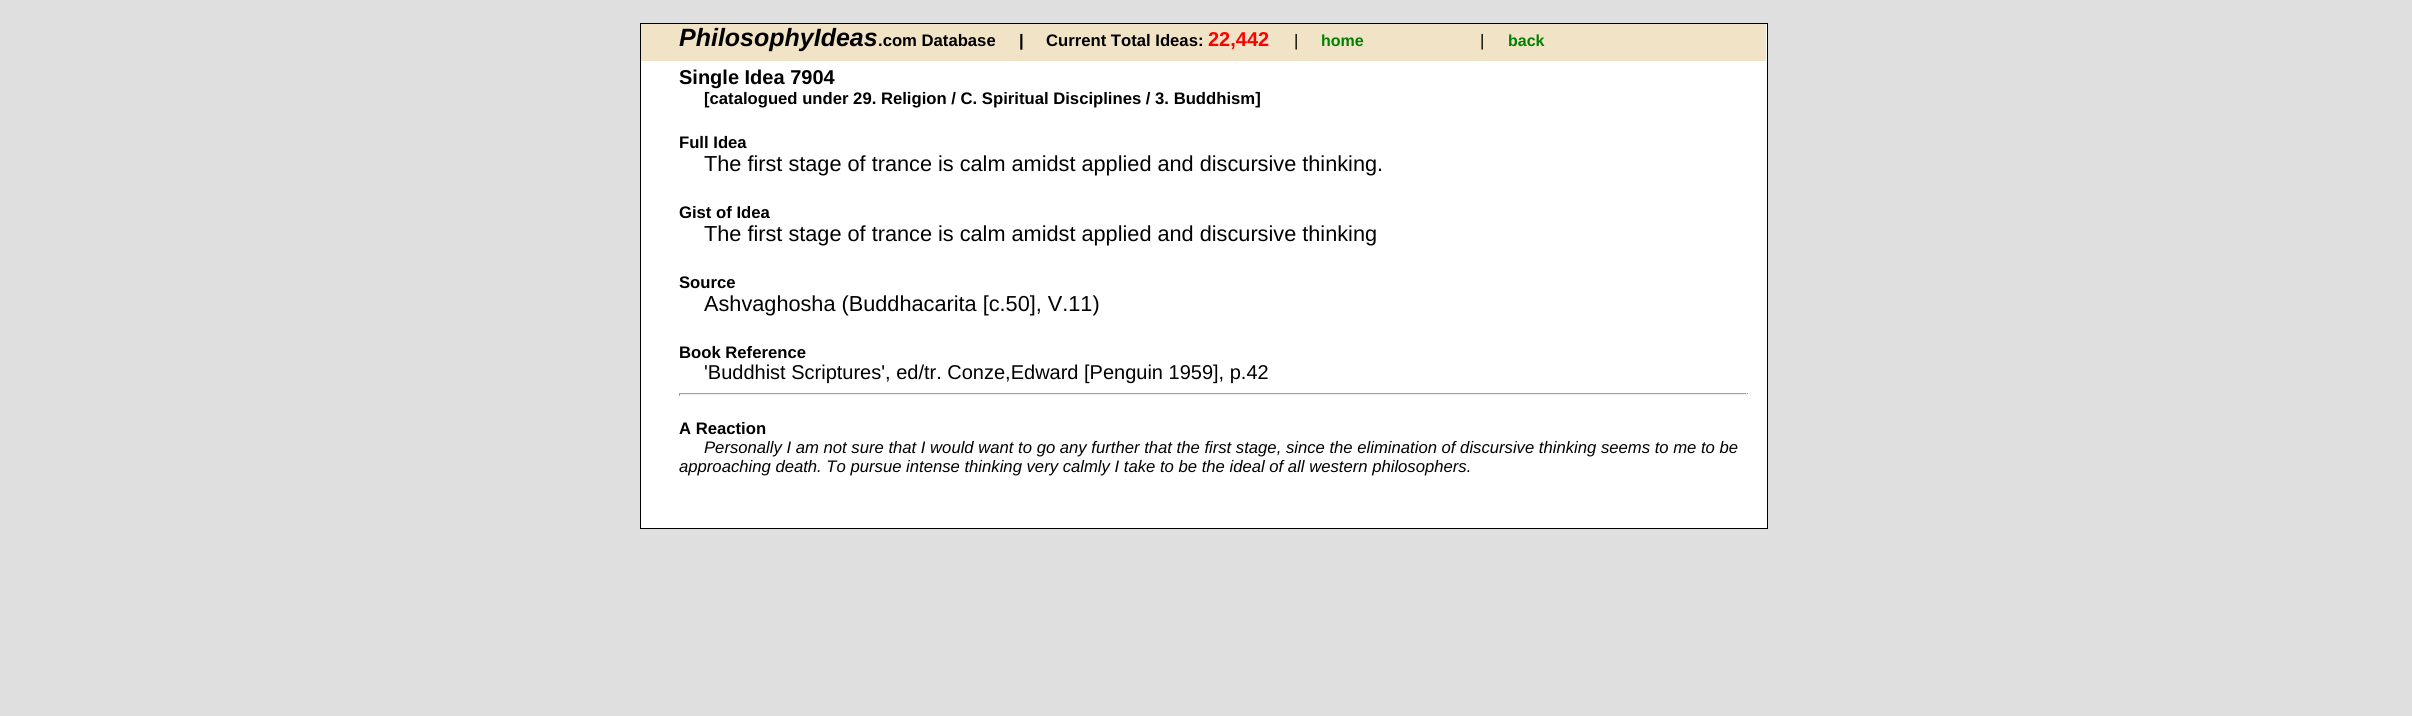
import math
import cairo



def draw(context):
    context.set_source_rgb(223 / 255, 223 / 255, 223 / 255)
    context.paint()
    context.set_source_rgb(1, 1, 1)
    context.rectangle(640.5, 23.5, 1127, 505)
    context.fill_preserve()
    context.set_source_rgb(0, 0, 0)
    context.set_line_width(1)
    context.stroke()
    context.set_source_rgb(240 / 255, 227 / 255, 198 / 255)
    context.rectangle(641, 24, 1125, 37)
    context.fill()
    context.set_source_rgb(159 / 255, 159 / 255, 159 / 255)
    context.rectangle(679, 393, 1069, 1)
    context.fill()
    context.set_source_rgb(238 / 255, 238 / 255, 238 / 255)
    context.rectangle(1746, 393, 1, 3)
    context.fill()
    context.rectangle(679, 394, 1069, 1)
    context.fill()
    context.set_source_rgb(159 / 255, 159 / 255, 159 / 255)
    context.rectangle(679, 393, 1, 3)
    context.fill()
    context.select_font_face("Liberation Sans", cairo.FontSlant.ITALIC, cairo.FontWeight.BOLD)
    context.set_font_size(25)
    context.set_source_rgb(0, 0, 0)
    context.move_to(679, 46)
    context.show_text("PhilosophyIdeas")
    context.select_font_face("Liberation Sans", cairo.FontSlant.NORMAL, cairo.FontWeight.BOLD)
    context.set_font_size(16.67)
    context.move_to(878, 46)
    context.show_text(".com Database")
    context.move_to(1019, 46)
    context.show_text("|")
    context.move_to(1046, 46)
    context.show_text("Current Total Ideas:")
    context.set_font_size(20)
    context.set_source_rgb(1, 0, 0)
    context.move_to(1208, 46)
    context.show_text("22,442")
    context.select_font_face("Liberation Sans")
    context.set_font_size(16.67)
    context.set_source_rgb(0, 0, 0)
    context.move_to(1294, 46)
    context.show_text("|")
    context.select_font_face("Liberation Sans", cairo.FontSlant.NORMAL, cairo.FontWeight.BOLD)
    context.set_font_size(16)
    context.set_source_rgb(0, 128 / 255, 0)
    context.move_to(1321, 46)
    context.show_text("home")
    context.select_font_face("Liberation Sans")
    context.set_font_size(16.67)
    context.set_source_rgb(0, 0, 0)
    context.move_to(1480, 46)
    context.show_text("|")
    context.select_font_face("Liberation Sans", cairo.FontSlant.NORMAL, cairo.FontWeight.BOLD)
    context.set_font_size(16)
    context.set_source_rgb(0, 128 / 255, 0)
    context.move_to(1508, 46)
    context.show_text("back")
    context.set_font_size(20)
    context.set_source_rgb(0, 0, 0)
    context.move_to(679, 84)
    context.show_text("Single Idea 7904")
    context.set_font_size(16.67)
    context.move_to(704, 104)
    context.show_text("[catalogued under 29. Religion / C. Spiritual Disciplines / 3. Buddhism]")
    context.move_to(679, 148)
    context.show_text("Full Idea")
    context.select_font_face("Liberation Sans")
    context.set_font_size(21.7)
    context.move_to(704, 171)
    context.show_text("The first stage of trance is calm amidst applied and discursive thinking.")
    context.select_font_face("Liberation Sans", cairo.FontSlant.NORMAL, cairo.FontWeight.BOLD)
    context.set_font_size(16.67)
    context.move_to(679, 218)
    context.show_text("Gist of Idea")
    context.select_font_face("Liberation Sans")
    context.set_font_size(21.7)
    context.move_to(704, 241)
    context.show_text("The first stage of trance is calm amidst applied and discursive thinking")
    context.select_font_face("Liberation Sans", cairo.FontSlant.NORMAL, cairo.FontWeight.BOLD)
    context.set_font_size(16.67)
    context.move_to(679, 288)
    context.show_text("Source")
    context.select_font_face("Liberation Sans")
    context.set_font_size(21.7)
    context.move_to(704, 311)
    context.show_text("Ashvaghosha (Buddhacarita [c.50], V.11)")
    context.select_font_face("Liberation Sans", cairo.FontSlant.NORMAL, cairo.FontWeight.BOLD)
    context.set_font_size(16.67)
    context.move_to(679, 358)
    context.show_text("Book Reference")
    context.select_font_face("Liberation Sans")
    context.set_font_size(20)
    context.move_to(704, 379)
    context.show_text("'Buddhist Scriptures', ed/tr. Conze,Edward [Penguin 1959], p.42")
    context.select_font_face("Liberation Sans", cairo.FontSlant.NORMAL, cairo.FontWeight.BOLD)
    context.set_font_size(16.67)
    context.move_to(679, 434)
    context.show_text("A Reaction")
    context.select_font_face("Liberation Sans", cairo.FontSlant.ITALIC)
    context.move_to(704, 453)
    context.show_text("Personally I am not sure that I would want to go any further that the first stage, since the elimination of discursive thinking seems to me to be")
    context.move_to(679, 472)
    context.show_text("approaching death. To pursue intense thinking very calmly I take to be the ideal of all western philosophers.")


surface = cairo.ImageSurface(cairo.Format.RGB24, 2412, 716)
context = cairo.Context(surface)
options = cairo.FontOptions()
options.set_hint_metrics(cairo.HintMetrics.OFF)
options.set_hint_style(cairo.HintStyle.NONE)
context.set_font_options(options)
context.set_miter_limit(4)
draw(context)
surface.write_to_png("out.png")
